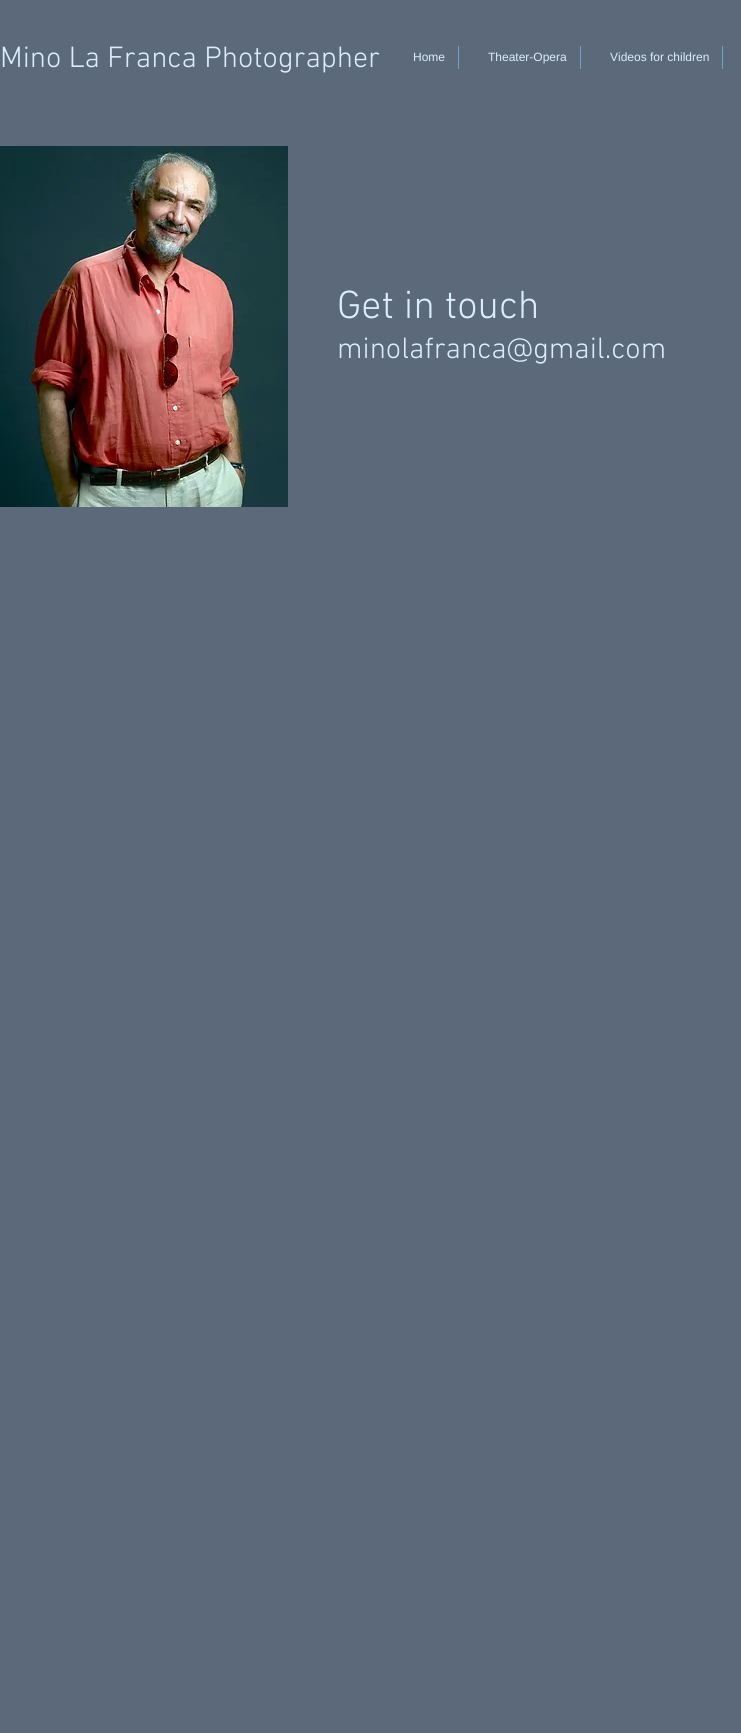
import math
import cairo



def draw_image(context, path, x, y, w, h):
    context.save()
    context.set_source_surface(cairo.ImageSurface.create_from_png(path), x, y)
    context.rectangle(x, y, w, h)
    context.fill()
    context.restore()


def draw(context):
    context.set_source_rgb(92 / 255, 105 / 255, 123 / 255)
    context.paint()
    context.set_source_rgb(110 / 255, 164 / 255, 202 / 255)
    context.rectangle(458, 46, 1, 23)
    context.fill()
    context.rectangle(580, 46, 1, 23)
    context.fill()
    context.rectangle(722, 46, 1, 23)
    context.fill()
    draw_image(context, "images/1.png", 0, 146, 288, 361)
    context.select_font_face("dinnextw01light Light")
    context.set_font_size(30)
    context.set_source_rgb(218 / 255, 237 / 255, 1)
    context.move_to(0, 67)
    context.show_text("Mino La Franca Photographer")
    context.select_font_face("Liberation Sans")
    context.set_font_size(12)
    context.move_to(413, 61)
    context.show_text("Home")
    context.move_to(488, 61)
    context.show_text("Theater-Opera")
    context.move_to(610, 61)
    context.show_text("Videos for children")
    context.select_font_face("dinnextw01light Light")
    context.set_font_size(40)
    context.move_to(337, 318)
    context.show_text("Get in touch")
    context.set_font_size(30)
    context.move_to(337, 358)
    context.show_text("minolafranca@gmail.com")


surface = cairo.ImageSurface(cairo.Format.RGB24, 741, 1733)
context = cairo.Context(surface)
options = cairo.FontOptions()
options.set_hint_metrics(cairo.HintMetrics.OFF)
options.set_hint_style(cairo.HintStyle.NONE)
context.set_font_options(options)
context.set_miter_limit(4)
draw(context)
surface.write_to_png("out.png")
